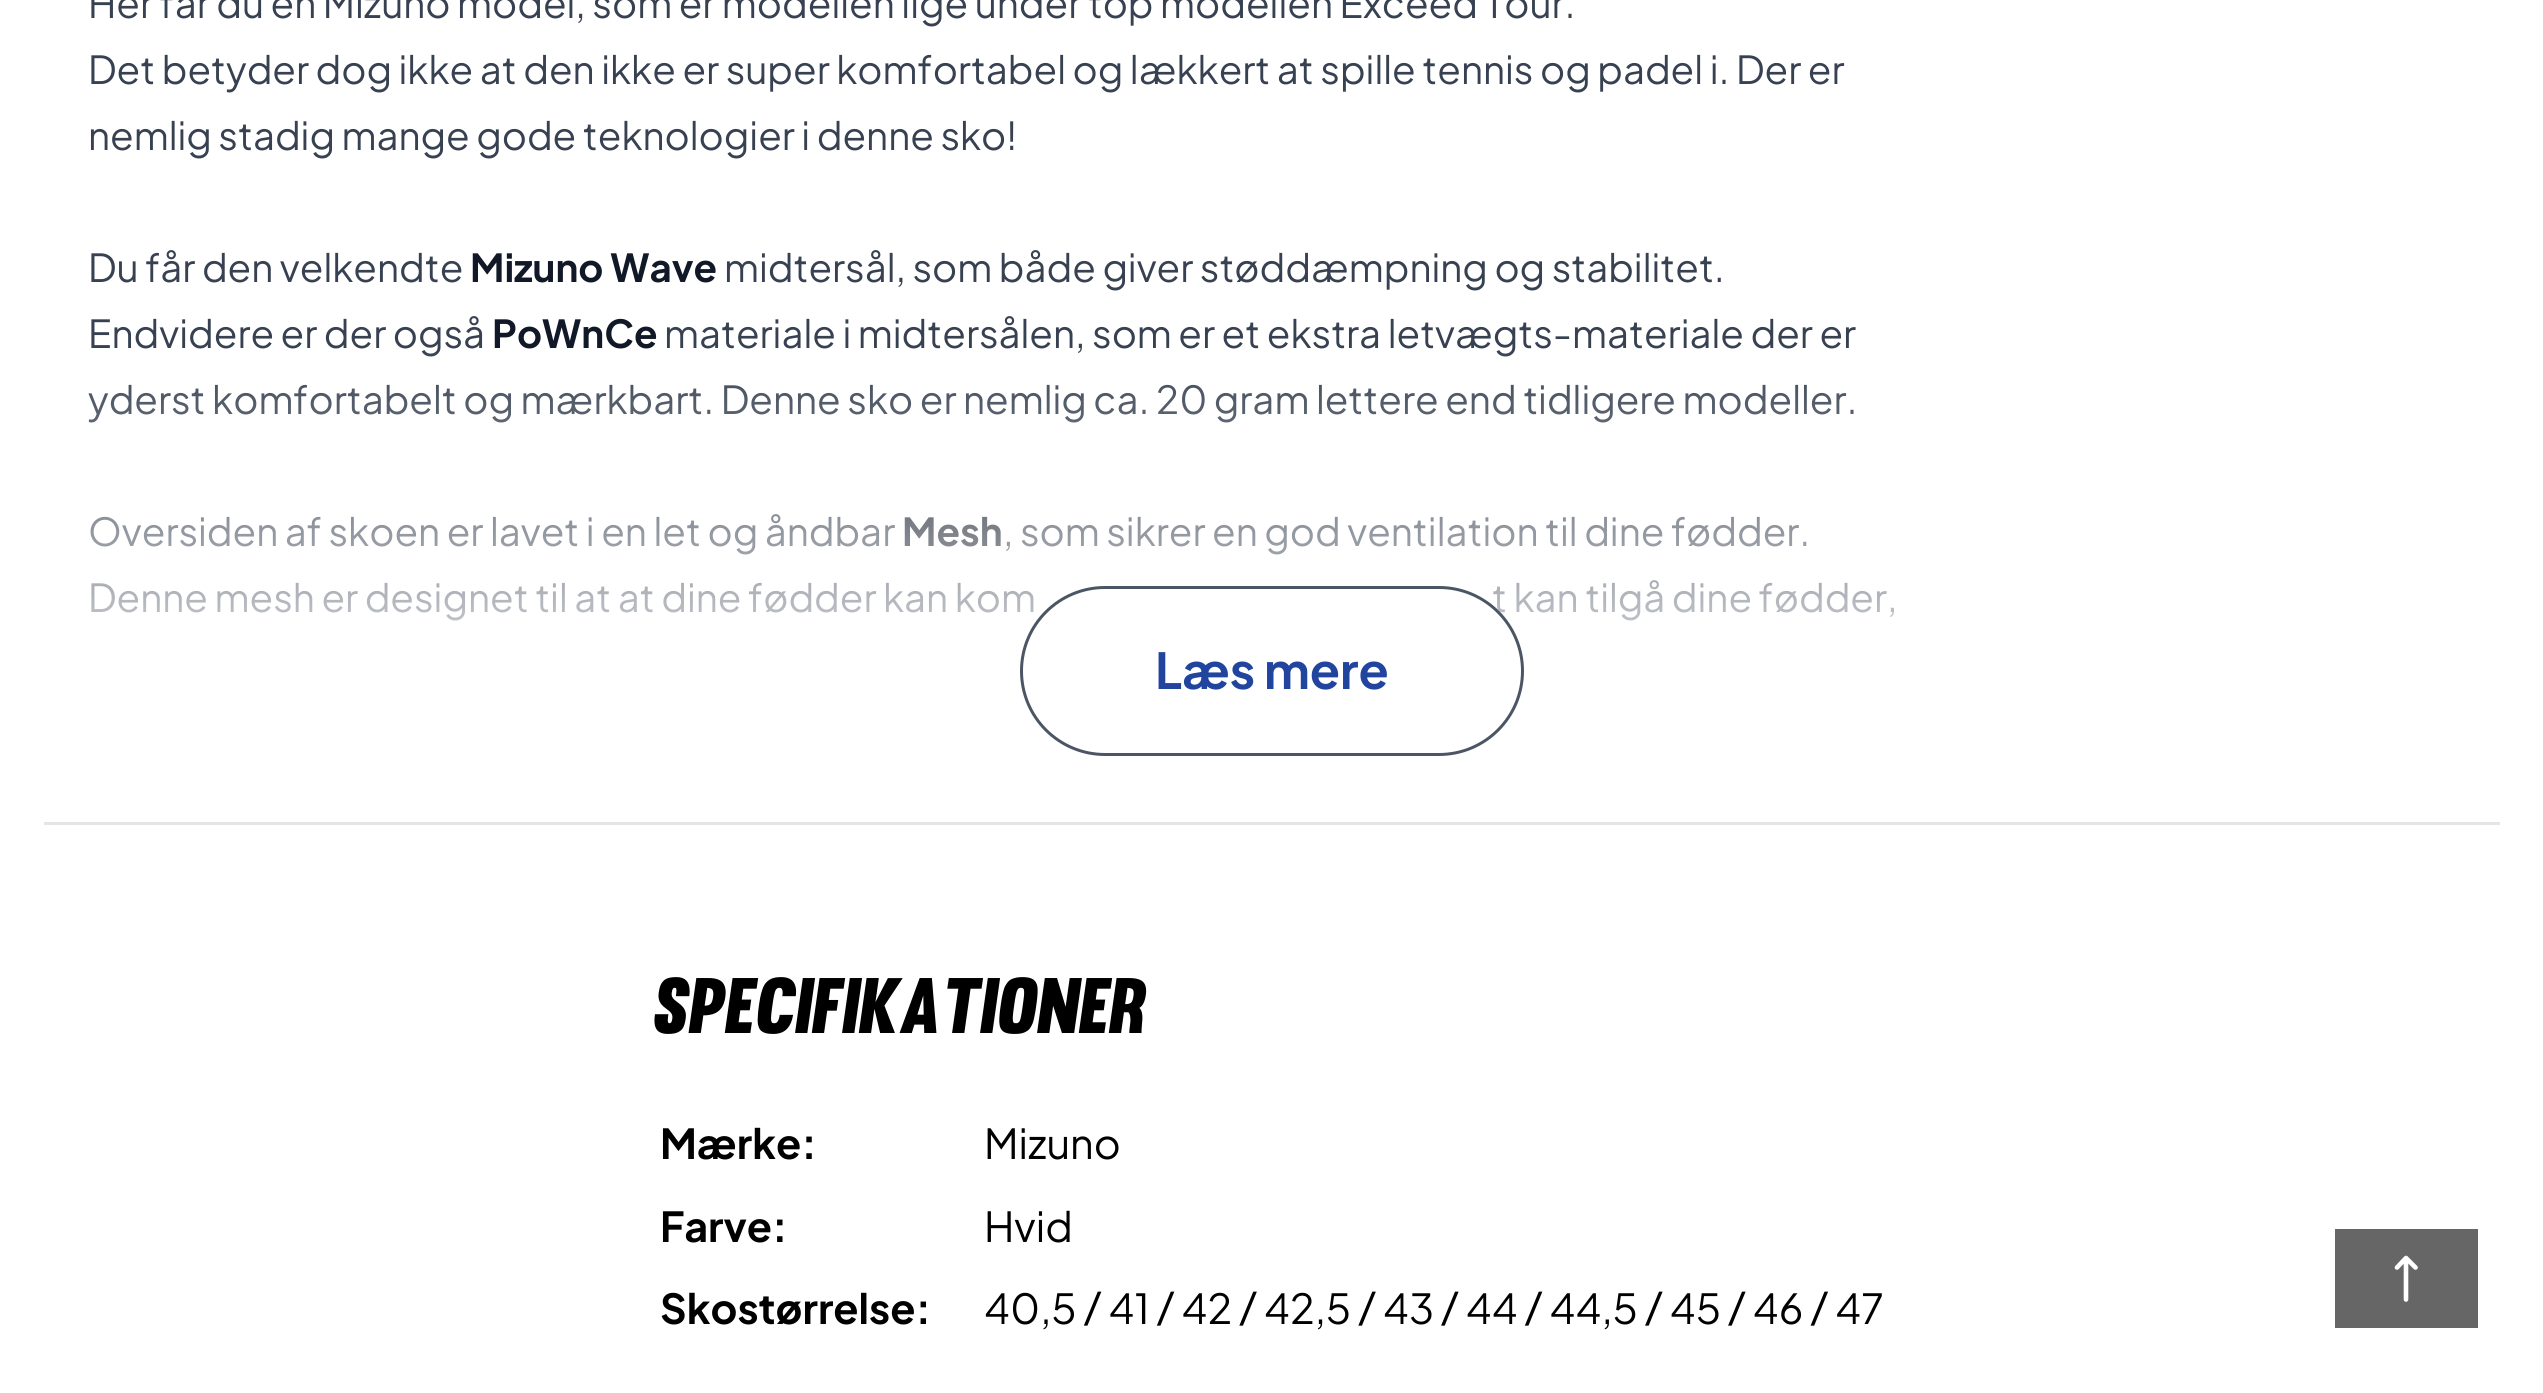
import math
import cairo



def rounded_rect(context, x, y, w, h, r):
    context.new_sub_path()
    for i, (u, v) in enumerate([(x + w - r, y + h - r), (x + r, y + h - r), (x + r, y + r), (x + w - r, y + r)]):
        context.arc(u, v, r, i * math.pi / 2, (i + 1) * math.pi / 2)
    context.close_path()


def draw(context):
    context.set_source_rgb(1, 1, 1)
    context.paint()
    context.set_source_rgb(229 / 255, 229 / 255, 229 / 255)
    context.rectangle(44, 822, 2456, 3)
    context.fill()
    context.set_source_rgb(102 / 255, 102 / 255, 102 / 255)
    context.rectangle(2335, 1229, 143, 99)
    context.fill()
    context.new_path()
    context.move_to(2397, 1267.5)
    context.line_to(2406, 1258)
    context.move_to(2406, 1258)
    context.line_to(2415.5, 1267.5)
    context.move_to(2406, 1258)
    context.line_to(2406, 1299.5)
    context.set_source_rgb(1, 1, 1)
    context.set_line_width(4.6)
    context.set_line_cap(cairo.LineCap.ROUND)
    context.set_line_join(cairo.LineJoin.ROUND)
    context.stroke()
    context.select_font_face("Plus Jakarta Sans")
    context.set_font_size(38.5)
    context.set_source_rgb(55 / 255, 65 / 255, 81 / 255)
    context.move_to(88, 18)
    context.show_text("Her får du en Mizuno model, som er modellen lige under top modellen Exceed Tour.")
    context.move_to(88, 84)
    context.show_text("Det betyder dog ikke at den ikke er super komfortabel og lækkert at spille tennis og padel i. Der er")
    context.move_to(88, 150)
    context.show_text("nemlig stadig mange gode teknologier i denne sko!")
    context.move_to(88, 282)
    context.show_text("Du får den velkendte")
    context.select_font_face("Plus Jakarta Sans", cairo.FontSlant.NORMAL, cairo.FontWeight.BOLD)
    context.set_source_rgb(17 / 255, 24 / 255, 39 / 255)
    context.move_to(470, 282)
    context.show_text("Mizuno Wave")
    context.select_font_face("Plus Jakarta Sans")
    context.set_source_rgb(55 / 255, 65 / 255, 81 / 255)
    context.move_to(724, 282)
    context.show_text("midtersål, som både giver støddæmpning og stabilitet.")
    context.move_to(88, 348)
    context.show_text("Endvidere er der også")
    context.select_font_face("Plus Jakarta Sans", cairo.FontSlant.NORMAL, cairo.FontWeight.BOLD)
    context.set_source_rgb(17 / 255, 24 / 255, 39 / 255)
    context.move_to(492, 348)
    context.show_text("PoWnCe")
    context.select_font_face("Plus Jakarta Sans")
    context.set_source_rgb(55 / 255, 65 / 255, 81 / 255)
    context.move_to(664, 348)
    context.show_text("materiale i midtersålen, som er et ekstra letvægts-materiale der er")
    context.move_to(88, 414)
    context.show_text("yderst komfortabelt og mærkbart. Denne sko er nemlig ca. 20 gram lettere end tidligere modeller.")
    context.move_to(88, 546)
    context.show_text("Oversiden af skoen er lavet i en let og åndbar")
    context.select_font_face("Plus Jakarta Sans", cairo.FontSlant.NORMAL, cairo.FontWeight.BOLD)
    context.set_source_rgb(17 / 255, 24 / 255, 39 / 255)
    context.move_to(902, 546)
    context.show_text("Mesh")
    context.select_font_face("Plus Jakarta Sans")
    context.set_source_rgb(55 / 255, 65 / 255, 81 / 255)
    context.move_to(1003, 546)
    context.show_text(", som sikrer en god ventilation til dine fødder.")
    context.move_to(88, 612)
    context.show_text("Denne mesh er designet til at at dine fødder kan kom")
    context.move_to(1492, 612)
    context.show_text("t kan tilgå dine fødder,")
    gradient = cairo.LinearGradient(1272, 344, 1272, 756)
    gradient.add_color_stop_rgba(0, 1, 1, 1, 0)
    gradient.add_color_stop_rgba(1, 1, 1, 1, 1)
    context.set_source(gradient)
    context.rectangle(88, 353, 1806, 268)
    context.fill()
    context.set_source_rgb(1, 1, 1)
    rounded_rect(context, 1021.5, 587.5, 501, 167, 83.5)
    context.fill_preserve()
    context.set_source_rgb(75 / 255, 85 / 255, 99 / 255)
    context.set_line_width(3)
    context.set_line_cap(cairo.LineCap.BUTT)
    context.set_line_join(cairo.LineJoin.MITER)
    context.stroke()
    context.select_font_face("Plus Jakarta Sans", cairo.FontSlant.NORMAL, cairo.FontWeight.BOLD)
    context.set_font_size(49.5)
    context.set_source_rgb(33 / 255, 69 / 255, 159 / 255)
    context.move_to(1155, 689)
    context.show_text("Læs mere")
    context.select_font_face("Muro", cairo.FontSlant.ITALIC)
    context.set_font_size(77)
    context.set_source_rgb(0, 0, 0)
    context.move_to(652, 1033)
    context.show_text("Specifikationer")
    context.select_font_face("Plus Jakarta Sans", cairo.FontSlant.NORMAL, cairo.FontWeight.BOLD)
    context.set_font_size(41.25)
    context.move_to(660, 1159)
    context.show_text("Mærke:")
    context.select_font_face("Plus Jakarta Sans")
    context.move_to(984, 1159)
    context.show_text("Mizuno")
    context.select_font_face("Plus Jakarta Sans", cairo.FontSlant.NORMAL, cairo.FontWeight.BOLD)
    context.move_to(660, 1242)
    context.show_text("Farve:")
    context.select_font_face("Plus Jakarta Sans")
    context.move_to(984, 1242)
    context.show_text("Hvid")
    context.select_font_face("Plus Jakarta Sans", cairo.FontSlant.NORMAL, cairo.FontWeight.BOLD)
    context.move_to(660, 1324)
    context.show_text("Skostørrelse:")
    context.select_font_face("Plus Jakarta Sans")
    context.move_to(984, 1324)
    context.show_text("40,5 / 41 / 42 / 42,5 / 43 / 44 / 44,5 / 45 / 46 / 47")


surface = cairo.ImageSurface(cairo.Format.RGB24, 2543, 1393)
context = cairo.Context(surface)
options = cairo.FontOptions()
options.set_hint_metrics(cairo.HintMetrics.OFF)
options.set_hint_style(cairo.HintStyle.NONE)
context.set_font_options(options)
context.set_miter_limit(4)
draw(context)
surface.write_to_png("out.png")
